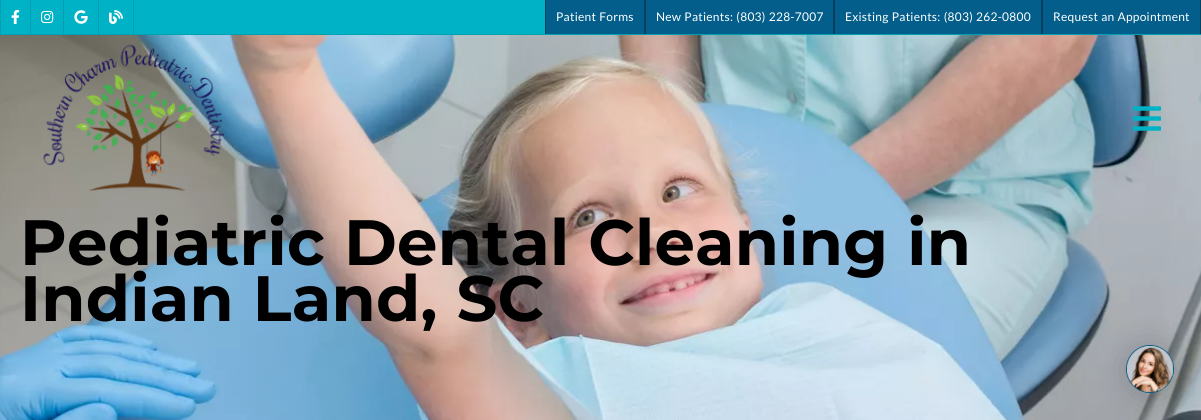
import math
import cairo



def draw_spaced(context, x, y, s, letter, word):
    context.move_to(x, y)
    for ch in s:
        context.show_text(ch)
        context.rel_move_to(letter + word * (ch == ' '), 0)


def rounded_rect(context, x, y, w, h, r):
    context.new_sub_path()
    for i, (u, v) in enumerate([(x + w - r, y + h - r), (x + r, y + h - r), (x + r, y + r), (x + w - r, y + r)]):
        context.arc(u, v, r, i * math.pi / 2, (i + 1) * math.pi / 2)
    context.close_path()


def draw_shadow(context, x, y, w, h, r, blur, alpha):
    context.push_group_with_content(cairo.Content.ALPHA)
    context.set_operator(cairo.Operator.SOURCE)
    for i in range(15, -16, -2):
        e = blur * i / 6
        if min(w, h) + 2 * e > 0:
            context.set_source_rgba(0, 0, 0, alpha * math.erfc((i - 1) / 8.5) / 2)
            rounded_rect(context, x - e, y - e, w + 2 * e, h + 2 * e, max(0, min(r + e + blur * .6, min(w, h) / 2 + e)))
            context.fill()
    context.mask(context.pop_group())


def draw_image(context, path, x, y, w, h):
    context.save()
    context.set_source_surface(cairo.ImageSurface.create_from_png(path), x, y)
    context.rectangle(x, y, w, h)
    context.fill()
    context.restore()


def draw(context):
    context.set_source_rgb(1, 1, 1)
    context.paint()
    context.set_source_rgb(0, 178 / 255, 197 / 255)
    context.rectangle(1, 0, 544, 34)
    context.fill()
    context.set_source_rgb(0, 160 / 255, 177 / 255)
    context.rectangle(0, 34, 1201, 1)
    context.fill()
    context.rectangle(30, 0, 1, 34)
    context.fill()
    context.rectangle(0, 0, 1, 34)
    context.fill()
    draw_image(context, "images/1.png", 11, 10, 9, 14)
    context.rectangle(63, 0, 1, 34)
    context.fill()
    draw_image(context, "images/2.png", 41, 10, 13, 14)
    context.rectangle(98, 0, 1, 34)
    context.fill()
    draw_image(context, "images/3.png", 74, 10, 14, 14)
    context.rectangle(133, 0, 1, 34)
    context.fill()
    draw_image(context, "images/4.png", 109, 10, 14, 14)
    context.set_source_rgb(3 / 255, 94 / 255, 139 / 255)
    context.rectangle(546, 0, 98, 34)
    context.fill()
    context.set_source_rgb(2 / 255, 66 / 255, 97 / 255)
    context.rectangle(644, 0, 2, 34)
    context.fill()
    context.rectangle(545, 0, 1, 34)
    context.fill()
    context.set_source_rgb(3 / 255, 94 / 255, 139 / 255)
    context.rectangle(646, 0, 187, 34)
    context.fill()
    context.set_source_rgb(2 / 255, 66 / 255, 97 / 255)
    context.rectangle(833, 0, 2, 34)
    context.fill()
    context.set_source_rgb(3 / 255, 94 / 255, 139 / 255)
    context.rectangle(835, 0, 206, 34)
    context.fill()
    context.set_source_rgb(2 / 255, 66 / 255, 97 / 255)
    context.rectangle(1041, 0, 2, 34)
    context.fill()
    context.set_source_rgb(3 / 255, 94 / 255, 139 / 255)
    context.rectangle(1043, 0, 157, 34)
    context.fill()
    context.set_source_rgb(2 / 255, 66 / 255, 97 / 255)
    context.rectangle(1200, 0, 1, 34)
    context.fill()
    draw_image(context, "images/7.png", 0, 35, 1201, 385)
    draw_image(context, "images/5.png", 43, 44, 181, 148)
    draw_image(context, "images/6.png", 1133, 106, 28, 25)
    context.set_source_rgb(0, 0, 0)
    draw_shadow(context, 1126, 347, 48, 48, 24, 16, 0.16)
    context.set_source_rgb(3 / 255, 94 / 255, 139 / 255)
    context.arc(1150, 369, 24, 0, 2 * math.pi)
    context.fill()
    draw_image(context, "images/8.png", 1127, 346, 46, 46)
    context.select_font_face("Lato")
    context.set_font_size(12)
    context.set_source_rgb(1, 1, 1)
    draw_spaced(context, 556, 21, "Patient Forms", 0.25, 0.5)
    draw_spaced(context, 656, 21, "New Patients: (803) 228-7007", 0.25, 0.5)
    draw_spaced(context, 845, 21, "Existing Patients: (803) 262-0800", 0.25, 0.5)
    draw_spaced(context, 1053, 21, "Request an Appointment", 0.25, 0.5)
    context.select_font_face("Montserrat", cairo.FontSlant.NORMAL, cairo.FontWeight.BOLD)
    context.set_font_size(64)
    context.set_source_rgb(0, 0, 0)
    draw_spaced(context, 20, 265, "Pediatric Dental Cleaning in", 0.25, 0.5)
    draw_spaced(context, 20, 321, "Indian Land, SC", 0.25, 0.5)


surface = cairo.ImageSurface(cairo.Format.RGB24, 1201, 420)
context = cairo.Context(surface)
options = cairo.FontOptions()
options.set_hint_metrics(cairo.HintMetrics.OFF)
options.set_hint_style(cairo.HintStyle.NONE)
context.set_font_options(options)
context.set_miter_limit(4)
draw(context)
surface.write_to_png("out.png")
